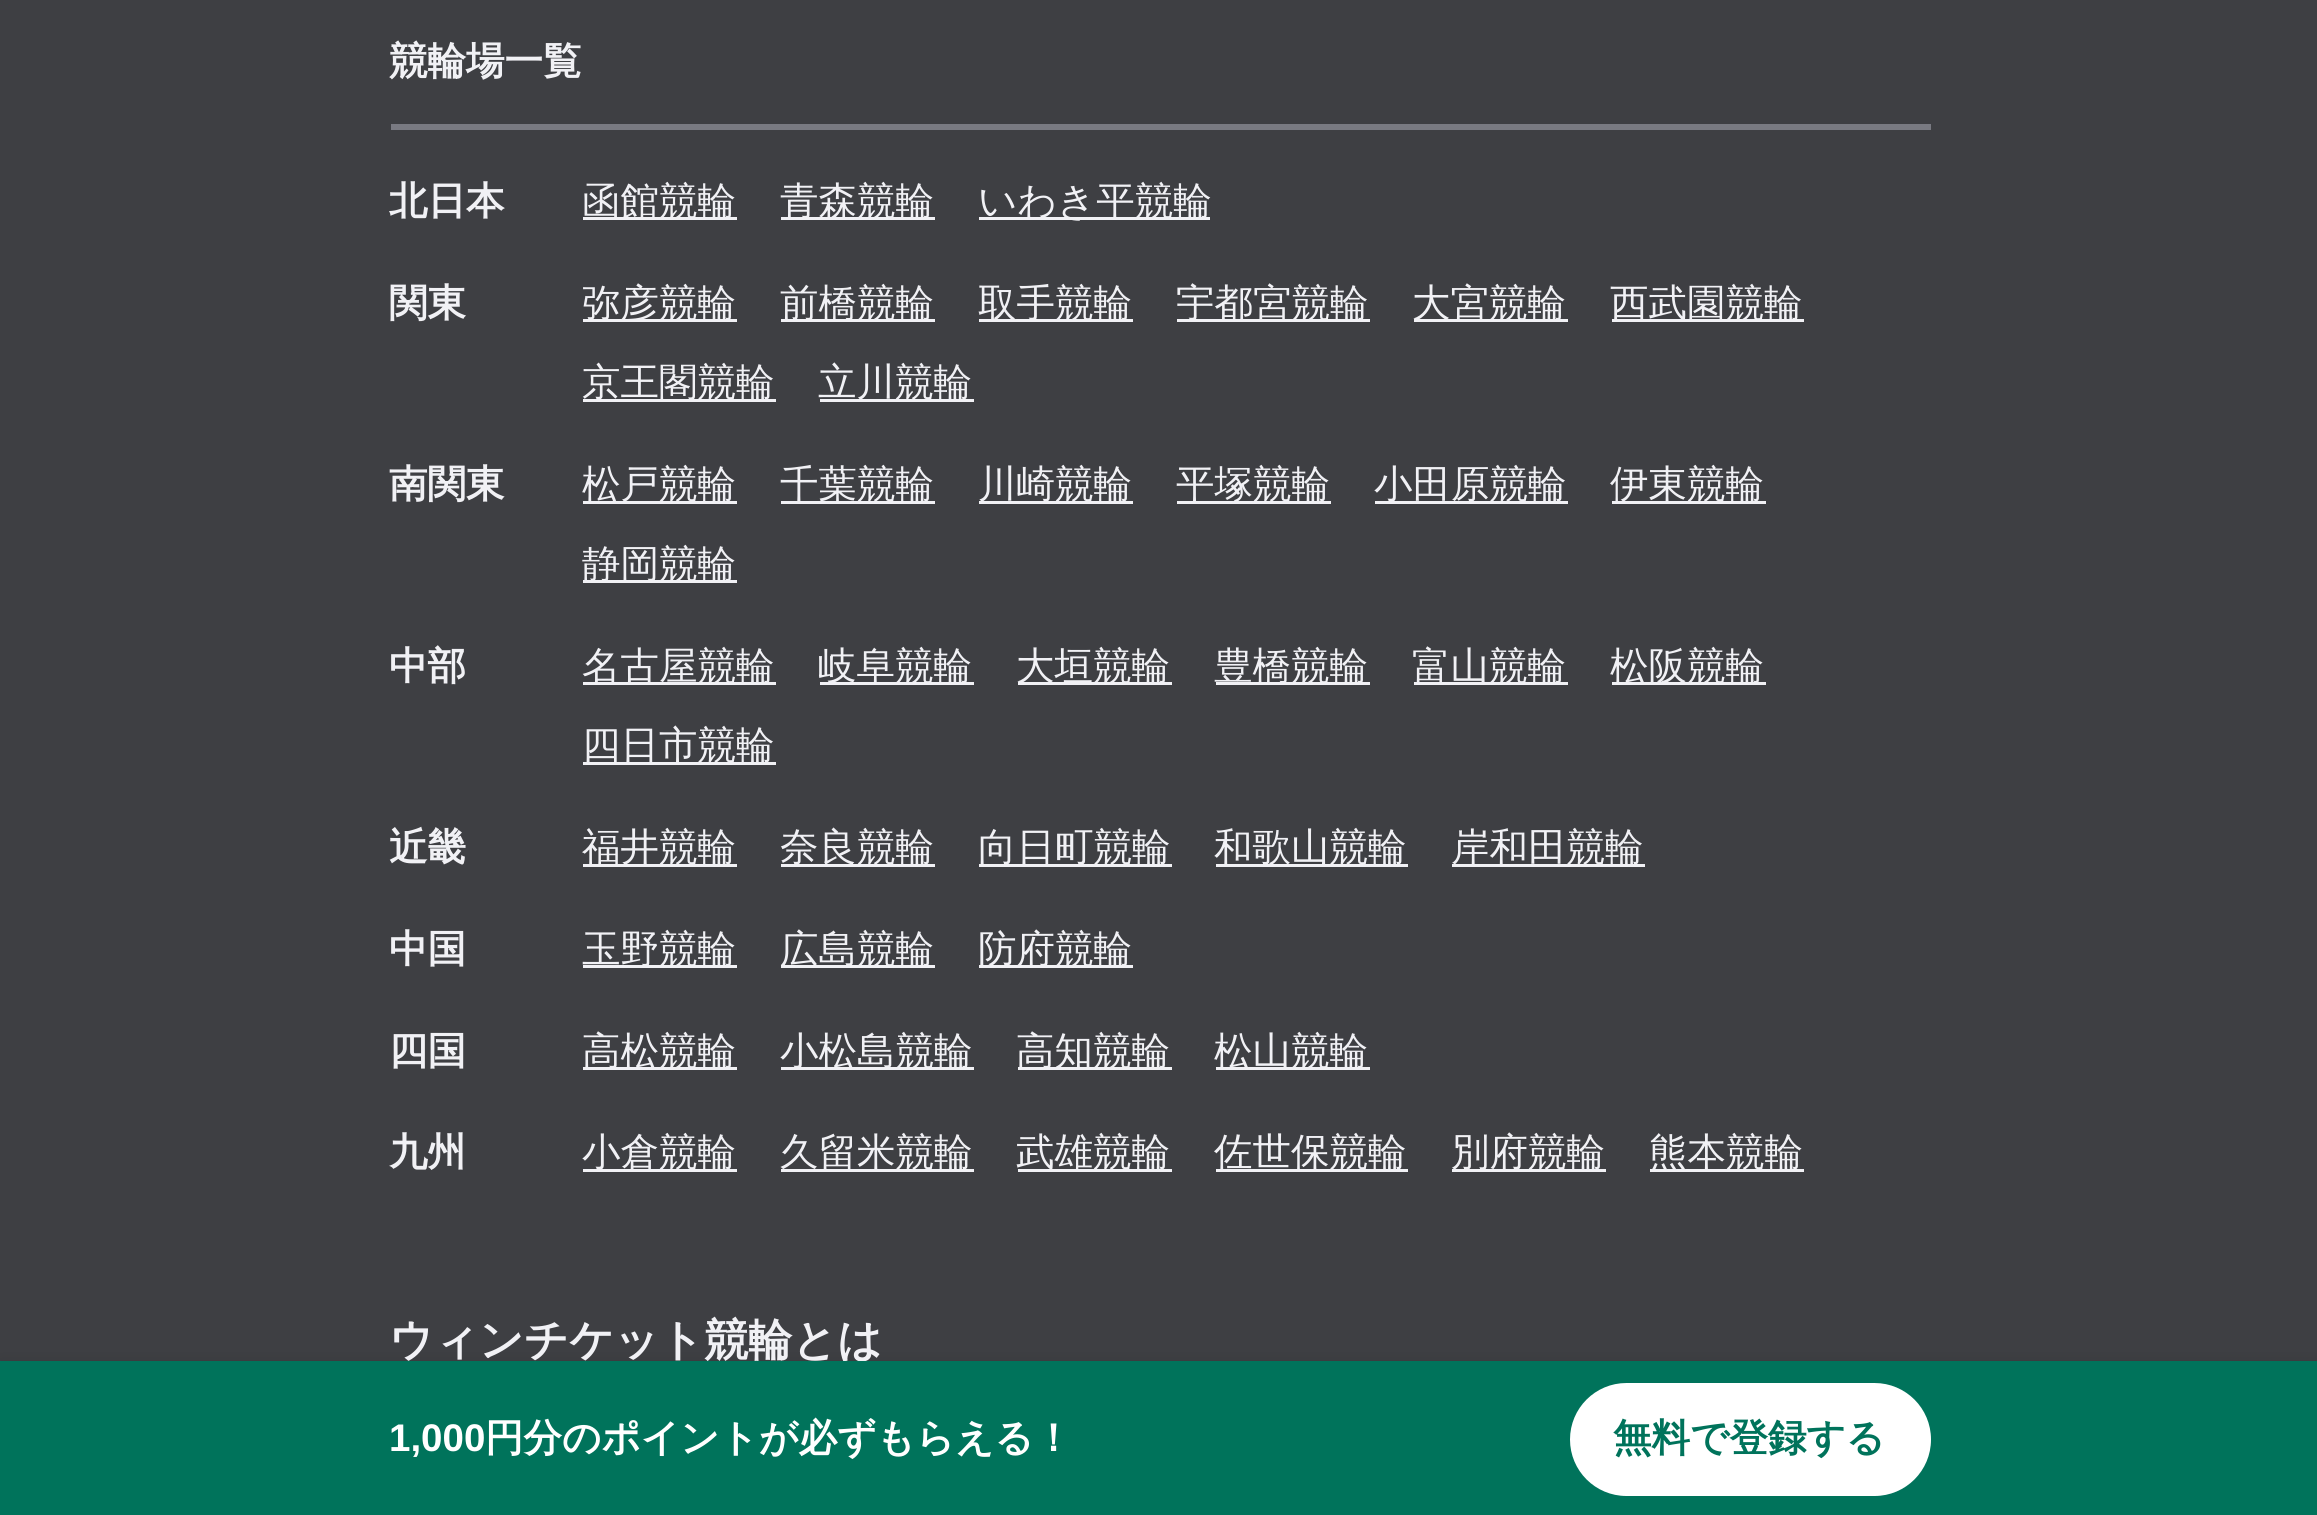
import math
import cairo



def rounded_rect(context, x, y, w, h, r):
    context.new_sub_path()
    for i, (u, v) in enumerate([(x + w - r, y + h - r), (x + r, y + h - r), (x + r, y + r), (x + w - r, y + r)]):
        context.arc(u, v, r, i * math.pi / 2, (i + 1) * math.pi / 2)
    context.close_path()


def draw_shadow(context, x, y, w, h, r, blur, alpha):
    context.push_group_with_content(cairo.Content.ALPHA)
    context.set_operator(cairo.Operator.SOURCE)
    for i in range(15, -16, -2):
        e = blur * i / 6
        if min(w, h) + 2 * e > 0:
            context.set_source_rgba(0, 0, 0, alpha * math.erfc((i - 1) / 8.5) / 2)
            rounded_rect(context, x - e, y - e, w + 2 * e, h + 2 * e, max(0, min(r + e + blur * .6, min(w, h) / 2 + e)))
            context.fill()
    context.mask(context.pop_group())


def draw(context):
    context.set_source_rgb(62 / 255, 63 / 255, 67 / 255)
    context.paint()
    context.set_source_rgb(121 / 255, 122 / 255, 130 / 255)
    context.rectangle(391, 124, 1540, 6)
    context.fill()
    context.set_source_rgb(241 / 255, 241 / 255, 245 / 255)
    context.rectangle(583, 217, 154, 3)
    context.fill()
    context.rectangle(781, 217, 154, 3)
    context.fill()
    context.rectangle(979, 217, 231, 3)
    context.fill()
    context.rectangle(583, 319, 154, 3)
    context.fill()
    context.rectangle(781, 319, 154, 3)
    context.fill()
    context.rectangle(979, 319, 154, 3)
    context.fill()
    context.rectangle(1177, 319, 193, 3)
    context.fill()
    context.rectangle(1414, 319, 154, 3)
    context.fill()
    context.rectangle(1612, 319, 192, 3)
    context.fill()
    context.rectangle(583, 399, 193, 3)
    context.fill()
    context.rectangle(820, 399, 154, 3)
    context.fill()
    context.rectangle(583, 501, 154, 3)
    context.fill()
    context.rectangle(781, 501, 154, 3)
    context.fill()
    context.rectangle(979, 501, 154, 3)
    context.fill()
    context.rectangle(1177, 501, 154, 3)
    context.fill()
    context.rectangle(1375, 501, 193, 3)
    context.fill()
    context.rectangle(1612, 501, 154, 3)
    context.fill()
    context.rectangle(583, 580, 154, 3)
    context.fill()
    context.rectangle(583, 682, 193, 3)
    context.fill()
    context.rectangle(820, 682, 154, 3)
    context.fill()
    context.rectangle(1018, 682, 154, 3)
    context.fill()
    context.rectangle(1216, 682, 154, 3)
    context.fill()
    context.rectangle(1414, 682, 154, 3)
    context.fill()
    context.rectangle(1612, 682, 154, 3)
    context.fill()
    context.rectangle(583, 762, 193, 3)
    context.fill()
    context.rectangle(583, 864, 154, 3)
    context.fill()
    context.rectangle(781, 864, 154, 3)
    context.fill()
    context.rectangle(979, 864, 193, 3)
    context.fill()
    context.rectangle(1216, 864, 192, 3)
    context.fill()
    context.rectangle(1452, 864, 193, 3)
    context.fill()
    context.rectangle(583, 965, 154, 3)
    context.fill()
    context.rectangle(781, 965, 154, 3)
    context.fill()
    context.rectangle(979, 965, 154, 3)
    context.fill()
    context.rectangle(583, 1067, 154, 3)
    context.fill()
    context.rectangle(781, 1067, 193, 3)
    context.fill()
    context.rectangle(1018, 1067, 154, 3)
    context.fill()
    context.rectangle(1216, 1067, 154, 3)
    context.fill()
    context.rectangle(583, 1169, 154, 3)
    context.fill()
    context.rectangle(781, 1169, 193, 3)
    context.fill()
    context.rectangle(1018, 1169, 154, 3)
    context.fill()
    context.rectangle(1216, 1169, 192, 3)
    context.fill()
    context.rectangle(1452, 1169, 154, 3)
    context.fill()
    context.rectangle(1650, 1169, 154, 3)
    context.fill()
    context.set_source_rgb(0, 0, 0)
    draw_shadow(context, 0, 1364, 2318, 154, 0, 8, 0.15)
    context.select_font_face("WenQuanYi Zen Hei", cairo.FontSlant.NORMAL, cairo.FontWeight.BOLD)
    context.set_font_size(38.5)
    context.set_source_rgb(241 / 255, 241 / 255, 245 / 255)
    context.move_to(389, 74)
    context.show_text("競輪場一覧")
    context.move_to(389, 214)
    context.show_text("北日本")
    context.select_font_face("WenQuanYi Zen Hei Medium")
    context.move_to(582, 214)
    context.show_text("函館競輪")
    context.move_to(780, 214)
    context.show_text("青森競輪")
    context.move_to(978, 214)
    context.show_text("いわき平競輪")
    context.select_font_face("WenQuanYi Zen Hei", cairo.FontSlant.NORMAL, cairo.FontWeight.BOLD)
    context.move_to(389, 316)
    context.show_text("関東")
    context.select_font_face("WenQuanYi Zen Hei Medium")
    context.move_to(582, 316)
    context.show_text("弥彦競輪")
    context.move_to(780, 316)
    context.show_text("前橋競輪")
    context.move_to(978, 316)
    context.show_text("取手競輪")
    context.move_to(1176, 316)
    context.show_text("宇都宮競輪")
    context.move_to(1412, 316)
    context.show_text("大宮競輪")
    context.move_to(1610, 316)
    context.show_text("西武園競輪")
    context.move_to(582, 395)
    context.show_text("京王閣競輪")
    context.move_to(818, 395)
    context.show_text("立川競輪")
    context.select_font_face("WenQuanYi Zen Hei", cairo.FontSlant.NORMAL, cairo.FontWeight.BOLD)
    context.move_to(389, 497)
    context.show_text("南関東")
    context.select_font_face("WenQuanYi Zen Hei Medium")
    context.move_to(582, 497)
    context.show_text("松戸競輪")
    context.move_to(780, 497)
    context.show_text("千葉競輪")
    context.move_to(978, 497)
    context.show_text("川崎競輪")
    context.move_to(1176, 497)
    context.show_text("平塚競輪")
    context.move_to(1374, 497)
    context.show_text("小田原競輪")
    context.move_to(1610, 497)
    context.show_text("伊東競輪")
    context.move_to(582, 577)
    context.show_text("静岡競輪")
    context.select_font_face("WenQuanYi Zen Hei", cairo.FontSlant.NORMAL, cairo.FontWeight.BOLD)
    context.move_to(389, 679)
    context.show_text("中部")
    context.select_font_face("WenQuanYi Zen Hei Medium")
    context.move_to(582, 679)
    context.show_text("名古屋競輪")
    context.move_to(818, 679)
    context.show_text("岐阜競輪")
    context.move_to(1016, 679)
    context.show_text("大垣競輪")
    context.move_to(1214, 679)
    context.show_text("豊橋競輪")
    context.move_to(1412, 679)
    context.show_text("富山競輪")
    context.move_to(1610, 679)
    context.show_text("松阪競輪")
    context.move_to(582, 758)
    context.show_text("四日市競輪")
    context.select_font_face("WenQuanYi Zen Hei", cairo.FontSlant.NORMAL, cairo.FontWeight.BOLD)
    context.move_to(389, 860)
    context.show_text("近畿")
    context.select_font_face("WenQuanYi Zen Hei Medium")
    context.move_to(582, 860)
    context.show_text("福井競輪")
    context.move_to(780, 860)
    context.show_text("奈良競輪")
    context.move_to(978, 860)
    context.show_text("向日町競輪")
    context.move_to(1214, 860)
    context.show_text("和歌山競輪")
    context.move_to(1451, 860)
    context.show_text("岸和田競輪")
    context.select_font_face("WenQuanYi Zen Hei", cairo.FontSlant.NORMAL, cairo.FontWeight.BOLD)
    context.move_to(389, 962)
    context.show_text("中国")
    context.select_font_face("WenQuanYi Zen Hei Medium")
    context.move_to(582, 962)
    context.show_text("玉野競輪")
    context.move_to(780, 962)
    context.show_text("広島競輪")
    context.move_to(978, 962)
    context.show_text("防府競輪")
    context.select_font_face("WenQuanYi Zen Hei", cairo.FontSlant.NORMAL, cairo.FontWeight.BOLD)
    context.move_to(389, 1064)
    context.show_text("四国")
    context.select_font_face("WenQuanYi Zen Hei Medium")
    context.move_to(582, 1064)
    context.show_text("高松競輪")
    context.move_to(780, 1064)
    context.show_text("小松島競輪")
    context.move_to(1016, 1064)
    context.show_text("高知競輪")
    context.move_to(1214, 1064)
    context.show_text("松山競輪")
    context.select_font_face("WenQuanYi Zen Hei", cairo.FontSlant.NORMAL, cairo.FontWeight.BOLD)
    context.move_to(389, 1165)
    context.show_text("九州")
    context.select_font_face("WenQuanYi Zen Hei Medium")
    context.move_to(582, 1165)
    context.show_text("小倉競輪")
    context.move_to(780, 1165)
    context.show_text("久留米競輪")
    context.move_to(1016, 1165)
    context.show_text("武雄競輪")
    context.move_to(1214, 1165)
    context.show_text("佐世保競輪")
    context.move_to(1451, 1165)
    context.show_text("別府競輪")
    context.move_to(1649, 1165)
    context.show_text("熊本競輪")
    context.select_font_face("WenQuanYi Zen Hei", cairo.FontSlant.NORMAL, cairo.FontWeight.BOLD)
    context.set_font_size(44)
    context.move_to(389, 1355)
    context.show_text("ウィンチケット競輪とは")
    context.set_source_rgb(0, 115 / 255, 91 / 255)
    context.rectangle(0, 1361, 2317, 154)
    context.fill()
    context.select_font_face("Liberation Sans", cairo.FontSlant.NORMAL, cairo.FontWeight.BOLD)
    context.set_font_size(38.5)
    context.set_source_rgb(1, 1, 1)
    context.move_to(389, 1451)
    context.show_text("1,000")
    context.select_font_face("WenQuanYi Zen Hei", cairo.FontSlant.NORMAL, cairo.FontWeight.BOLD)
    context.move_to(485, 1451)
    context.show_text("円分のポイントが必ずもらえる！")
    rounded_rect(context, 1570, 1383, 361, 113, 56.5)
    context.fill()
    context.set_source_rgb(0, 115 / 255, 91 / 255)
    context.move_to(1613, 1451)
    context.show_text("無料で登録する")


surface = cairo.ImageSurface(cairo.Format.RGB24, 2317, 1515)
context = cairo.Context(surface)
options = cairo.FontOptions()
options.set_hint_metrics(cairo.HintMetrics.OFF)
options.set_hint_style(cairo.HintStyle.NONE)
context.set_font_options(options)
context.set_miter_limit(4)
draw(context)
surface.write_to_png("out.png")
